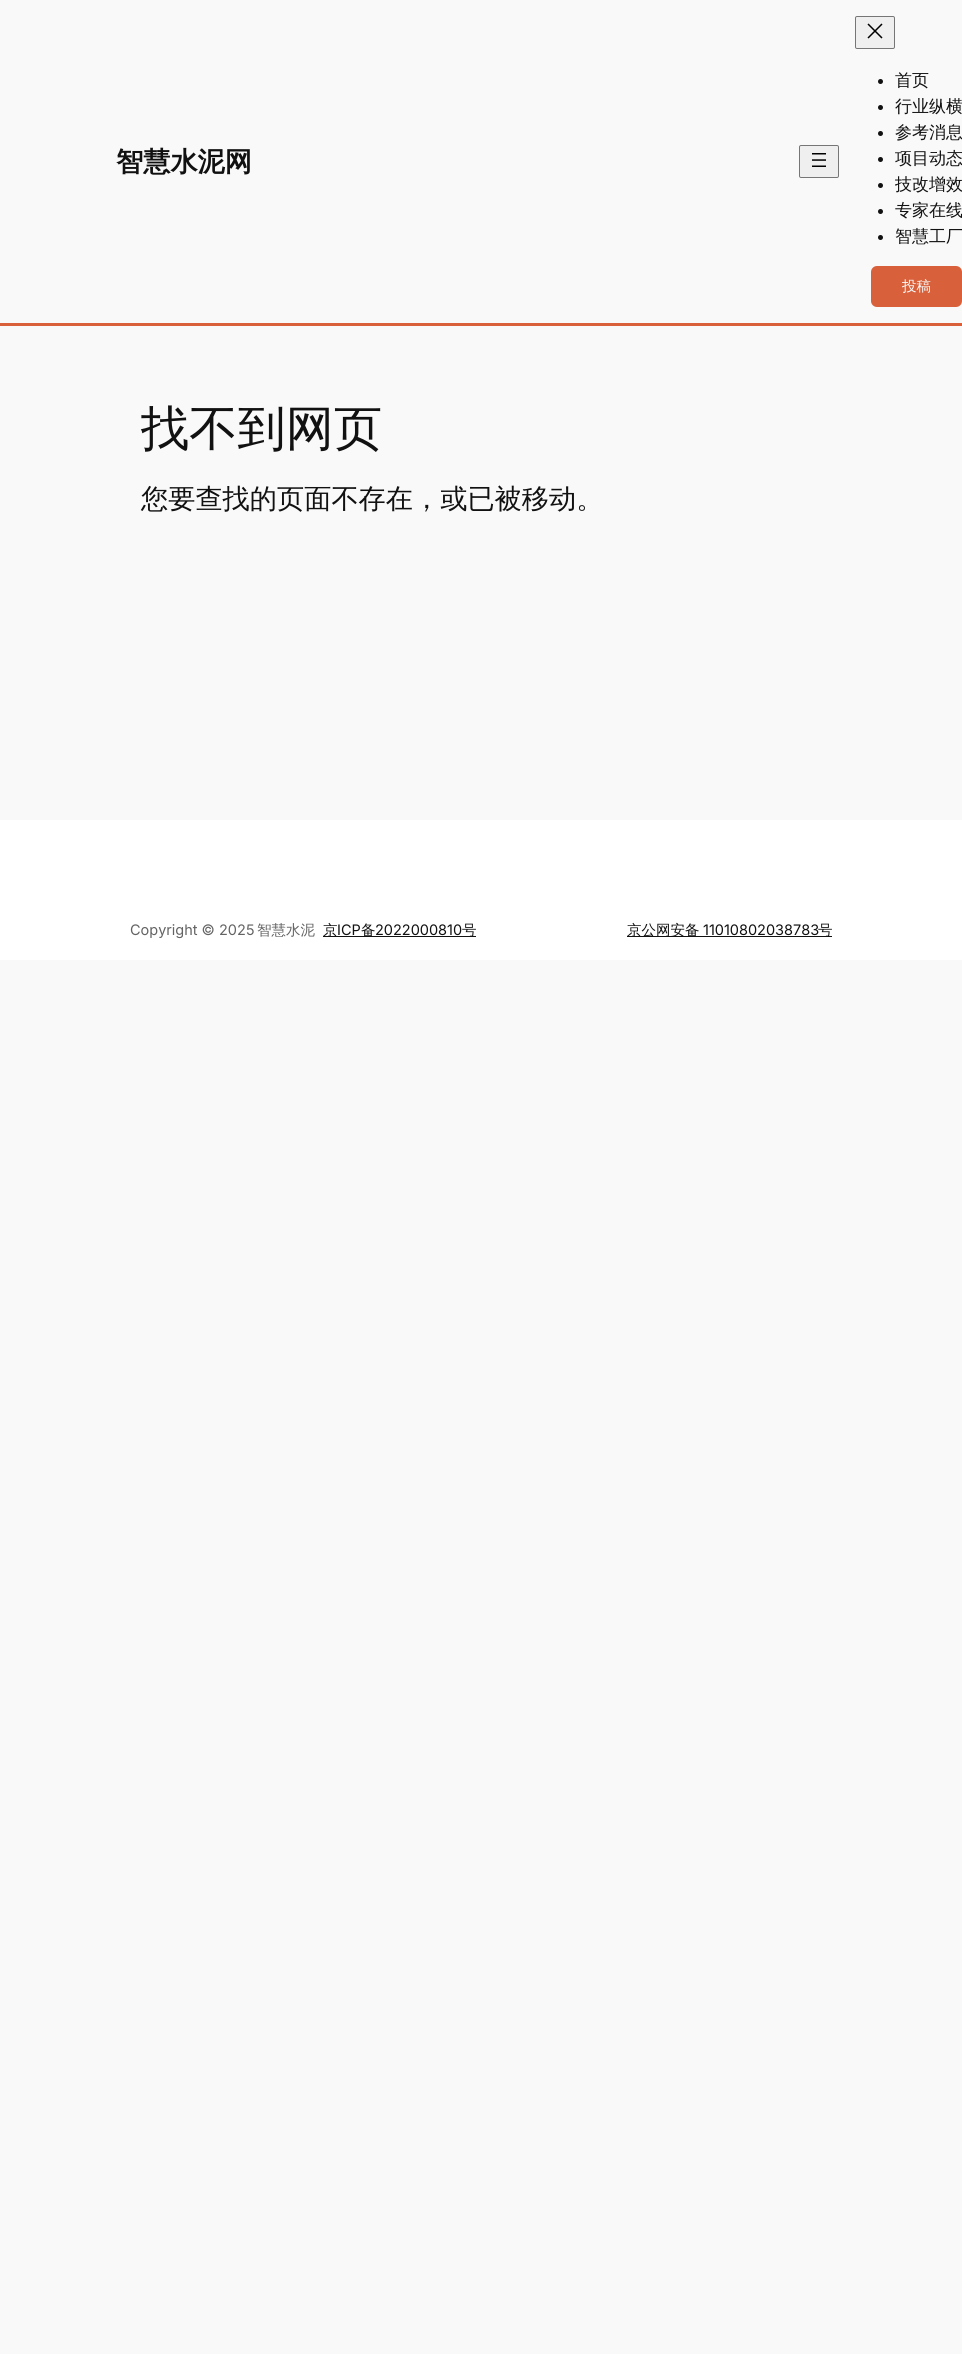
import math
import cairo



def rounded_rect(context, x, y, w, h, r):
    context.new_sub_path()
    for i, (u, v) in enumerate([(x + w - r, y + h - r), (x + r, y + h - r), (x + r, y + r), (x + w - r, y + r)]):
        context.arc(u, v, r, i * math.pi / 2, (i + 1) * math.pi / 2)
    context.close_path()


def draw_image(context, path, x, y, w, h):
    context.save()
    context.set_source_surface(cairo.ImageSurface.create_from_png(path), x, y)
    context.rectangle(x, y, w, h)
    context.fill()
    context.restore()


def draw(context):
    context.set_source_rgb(249 / 255, 249 / 255, 249 / 255)
    context.paint()
    context.set_source_rgb(216 / 255, 97 / 255, 60 / 255)
    context.rectangle(0, 323, 962, 3)
    context.fill()
    context.set_source_rgb(239 / 255, 239 / 255, 239 / 255)
    rounded_rect(context, 799.5, 145.5, 39, 32, 1.5)
    context.fill_preserve()
    context.set_source_rgb(118 / 255, 118 / 255, 118 / 255)
    context.set_line_width(1)
    context.stroke()
    draw_image(context, "images/1.png", 812, 153, 14, 14)
    context.set_source_rgb(239 / 255, 239 / 255, 239 / 255)
    rounded_rect(context, 855.5, 16.5, 39, 32, 1.5)
    context.fill_preserve()
    context.set_source_rgb(118 / 255, 118 / 255, 118 / 255)
    context.stroke()
    draw_image(context, "images/2.png", 867, 23, 16, 16)
    context.set_source_rgb(17 / 255, 17 / 255, 17 / 255)
    context.arc(880.5, 81.5, 2.5, 0, 2 * math.pi)
    context.fill()
    context.arc(880.5, 107.5, 2.5, 0, 2 * math.pi)
    context.fill()
    context.arc(880.5, 133.5, 2.5, 0, 2 * math.pi)
    context.fill()
    context.arc(880.5, 159.5, 2.5, 0, 2 * math.pi)
    context.fill()
    context.arc(880.5, 185.5, 2.5, 0, 2 * math.pi)
    context.fill()
    context.arc(880.5, 211.5, 2.5, 0, 2 * math.pi)
    context.fill()
    context.arc(880.5, 237.5, 2.5, 0, 2 * math.pi)
    context.fill()
    context.set_source_rgb(216 / 255, 97 / 255, 60 / 255)
    rounded_rect(context, 871, 266, 91, 41, 6)
    context.fill()
    context.set_source_rgb(1, 1, 1)
    context.rectangle(0, 820, 962, 140)
    context.fill()
    context.set_source_rgb(17 / 255, 17 / 255, 17 / 255)
    context.rectangle(323, 936, 153, 1)
    context.fill()
    context.rectangle(627, 936, 205, 1)
    context.fill()
    context.select_font_face("WenQuanYi Zen Hei", cairo.FontSlant.NORMAL, cairo.FontWeight.BOLD)
    context.set_font_size(27.2)
    context.move_to(116, 171)
    context.show_text("智慧水泥网")
    context.select_font_face("WenQuanYi Zen Hei Medium")
    context.set_font_size(17)
    context.move_to(895, 86)
    context.show_text("首页")
    context.move_to(895, 112)
    context.show_text("行业纵横")
    context.move_to(895, 138)
    context.show_text("参考消息")
    context.move_to(895, 164)
    context.show_text("项目动态")
    context.move_to(895, 190)
    context.show_text("技改增效")
    context.move_to(895, 216)
    context.show_text("专家在线")
    context.move_to(895, 242)
    context.show_text("智慧工厂")
    context.set_font_size(14.5)
    context.set_source_rgb(249 / 255, 249 / 255, 249 / 255)
    context.move_to(902, 291)
    context.show_text("投稿")
    context.set_font_size(48.25)
    context.set_source_rgb(17 / 255, 17 / 255, 17 / 255)
    context.move_to(141, 445)
    context.show_text("找不到网页")
    context.set_font_size(27.2)
    context.move_to(141, 508)
    context.show_text("您要查找的页面不存在，或已被移动。")
    context.select_font_face("Inter")
    context.set_font_size(14.5)
    context.set_source_rgb(99 / 255, 99 / 255, 99 / 255)
    context.move_to(130, 935)
    context.show_text("Copyright © 2025")
    context.select_font_face("WenQuanYi Zen Hei Medium")
    context.move_to(257, 935)
    context.show_text("智慧水泥")
    context.set_source_rgb(17 / 255, 17 / 255, 17 / 255)
    context.move_to(323, 935)
    context.show_text("京")
    context.select_font_face("Inter")
    context.move_to(337, 935)
    context.show_text("ICP")
    context.select_font_face("WenQuanYi Zen Hei Medium")
    context.move_to(361, 935)
    context.show_text("备")
    context.select_font_face("Inter")
    context.move_to(375, 935)
    context.show_text("2022000810")
    context.select_font_face("WenQuanYi Zen Hei Medium")
    context.move_to(462, 935)
    context.show_text("号")
    context.move_to(627, 935)
    context.show_text("京公网安备")
    context.select_font_face("Inter")
    context.move_to(703, 935)
    context.show_text("11010802038783")
    context.select_font_face("WenQuanYi Zen Hei Medium")
    context.move_to(818, 935)
    context.show_text("号")


surface = cairo.ImageSurface(cairo.Format.RGB24, 962, 2354)
context = cairo.Context(surface)
options = cairo.FontOptions()
options.set_hint_metrics(cairo.HintMetrics.OFF)
options.set_hint_style(cairo.HintStyle.NONE)
context.set_font_options(options)
context.set_miter_limit(4)
draw(context)
surface.write_to_png("out.png")
